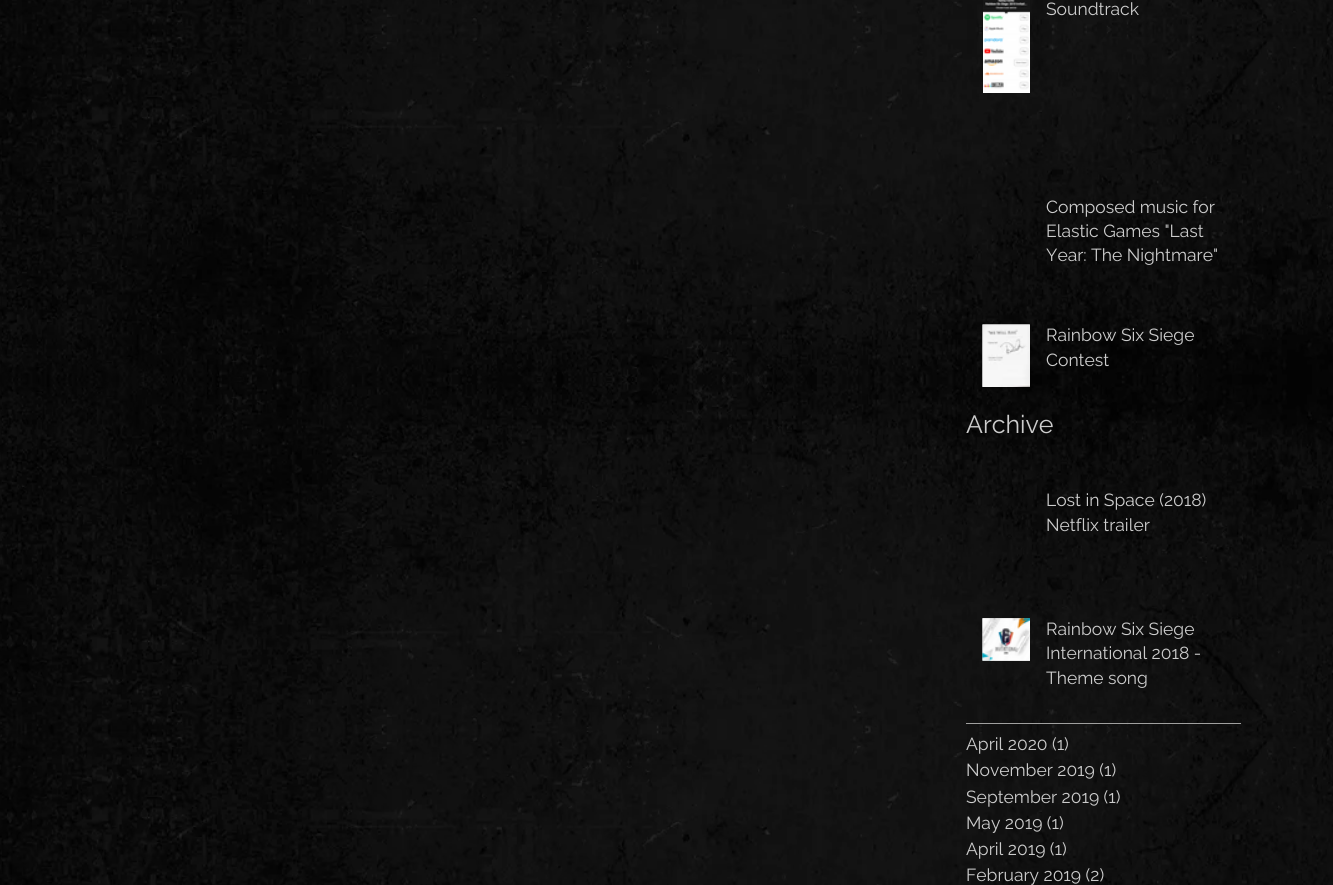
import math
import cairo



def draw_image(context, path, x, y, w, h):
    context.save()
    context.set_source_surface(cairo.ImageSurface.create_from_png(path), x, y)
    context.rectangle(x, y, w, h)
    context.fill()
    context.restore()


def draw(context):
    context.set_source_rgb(1, 1, 1)
    context.paint()
    draw_image(context, "images/1.png", 0, 0, 1333, 885)
    draw_image(context, "images/2.png", 983, 0, 47, 93)
    draw_image(context, "images/3.png", 982, 324, 48, 63)
    draw_image(context, "images/4.png", 982, 324, 48, 63)
    draw_image(context, "images/5.png", 982, 618, 48, 43)
    draw_image(context, "images/6.png", 982, 618, 48, 43)
    context.set_source_rgb(160 / 255, 160 / 255, 159 / 255)
    context.rectangle(966, 723, 275, 1)
    context.fill()
    context.select_font_face("Raleway")
    context.set_font_size(25)
    context.set_source_rgb(204 / 255, 204 / 255, 204 / 255)
    context.move_to(966, 433)
    context.show_text("Archive")
    context.set_font_size(17.5)
    context.move_to(1046, 15)
    context.show_text("Soundtrack")
    context.move_to(1046, 213)
    context.show_text("Composed music for")
    context.move_to(1046, 237)
    context.show_text("Elastic Games \"Last")
    context.move_to(1046, 261)
    context.show_text("Year: The Nightmare\"")
    context.move_to(1046, 341)
    context.show_text("Rainbow Six Siege")
    context.move_to(1046, 366)
    context.show_text("Contest")
    context.move_to(1046, 506)
    context.show_text("Lost in Space (2018)")
    context.move_to(1046, 531)
    context.show_text("Netflix trailer")
    context.move_to(1046, 635)
    context.show_text("Rainbow Six Siege")
    context.move_to(1046, 659)
    context.show_text("International 2018 -")
    context.move_to(1046, 684)
    context.show_text("Theme song")
    context.move_to(966, 750)
    context.show_text("April 2020 (1)")
    context.move_to(966, 776)
    context.show_text("November 2019 (1)")
    context.move_to(966, 803)
    context.show_text("September 2019 (1)")
    context.move_to(966, 829)
    context.show_text("May 2019 (1)")
    context.move_to(966, 855)
    context.show_text("April 2019 (1)")
    context.move_to(966, 881)
    context.show_text("February 2019 (2)")


surface = cairo.ImageSurface(cairo.Format.RGB24, 1333, 885)
context = cairo.Context(surface)
options = cairo.FontOptions()
options.set_hint_metrics(cairo.HintMetrics.OFF)
options.set_hint_style(cairo.HintStyle.NONE)
context.set_font_options(options)
context.set_miter_limit(4)
draw(context)
surface.write_to_png("out.png")
